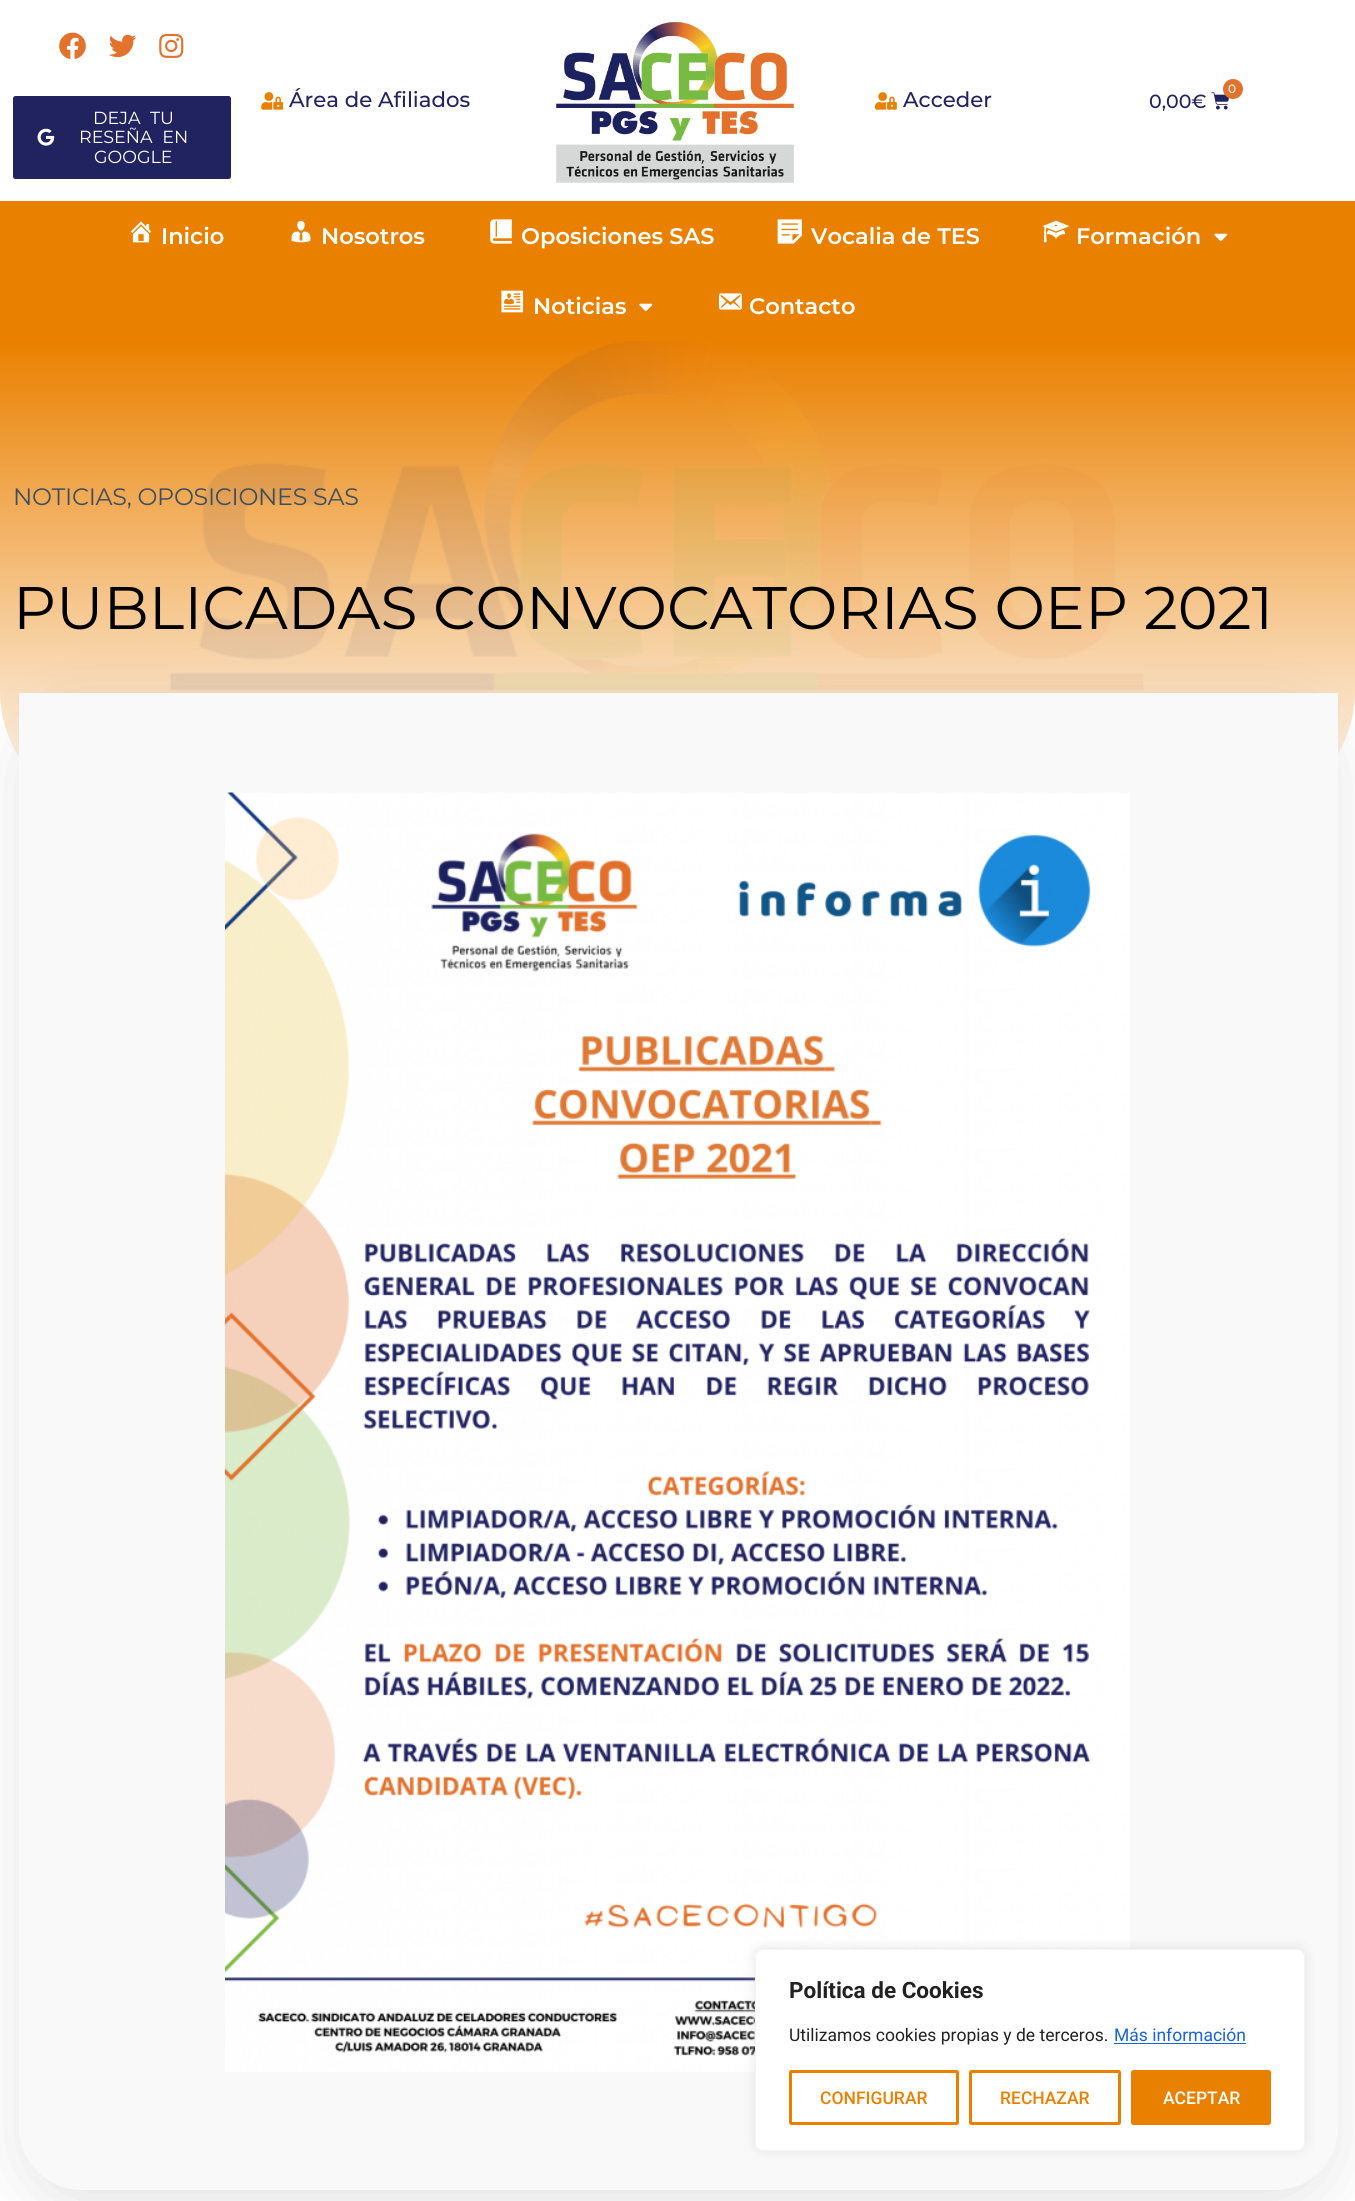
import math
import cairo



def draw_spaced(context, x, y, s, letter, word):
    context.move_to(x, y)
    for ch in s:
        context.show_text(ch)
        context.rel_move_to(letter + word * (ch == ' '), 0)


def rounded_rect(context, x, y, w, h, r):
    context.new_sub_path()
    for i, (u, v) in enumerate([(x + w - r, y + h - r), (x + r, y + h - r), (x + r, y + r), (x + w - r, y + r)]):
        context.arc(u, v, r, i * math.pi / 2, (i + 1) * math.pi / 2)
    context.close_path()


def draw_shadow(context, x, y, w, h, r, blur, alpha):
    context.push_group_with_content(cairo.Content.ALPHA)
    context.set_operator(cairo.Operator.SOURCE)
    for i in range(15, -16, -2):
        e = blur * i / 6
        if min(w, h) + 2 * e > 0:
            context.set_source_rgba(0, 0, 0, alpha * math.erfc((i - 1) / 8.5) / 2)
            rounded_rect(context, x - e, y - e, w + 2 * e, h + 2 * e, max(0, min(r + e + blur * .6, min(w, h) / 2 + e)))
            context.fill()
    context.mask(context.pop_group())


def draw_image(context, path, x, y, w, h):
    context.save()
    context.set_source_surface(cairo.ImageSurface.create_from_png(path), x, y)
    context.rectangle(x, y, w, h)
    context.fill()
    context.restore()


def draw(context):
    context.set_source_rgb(1, 1, 1)
    context.paint()
    draw_image(context, "images/1.png", 261, 92, 23, 18)
    draw_image(context, "images/2.png", 59, 32, 27, 27)
    draw_image(context, "images/3.png", 109, 34, 28, 24)
    draw_image(context, "images/4.png", 159, 33, 25, 25)
    context.set_source_rgb(32 / 255, 35 / 255, 96 / 255)
    rounded_rect(context, 13, 96, 218, 83, 2.5)
    context.fill()
    draw_image(context, "images/5.png", 37, 128, 18, 18)
    draw_image(context, "images/6.png", 556, 22, 239, 161)
    draw_image(context, "images/7.png", 875, 92, 22, 18)
    draw_image(context, "images/8.png", 1211, 92, 18, 18)
    context.set_source_rgb(227 / 255, 114 / 255, 45 / 255)
    context.arc(1233, 89, 10, 0, 2 * math.pi)
    context.fill()
    context.set_source_rgb(234 / 255, 128 / 255, 0)
    context.rectangle(0, 201, 1355, 140)
    context.fill()
    draw_image(context, "images/9.png", 130, 221, 22, 22)
    draw_image(context, "images/10.png", 291, 220, 20, 23)
    draw_image(context, "images/11.png", 490, 219, 22, 25)
    draw_image(context, "images/12.png", 777, 219, 25, 25)
    draw_image(context, "images/13.png", 1042, 220, 28, 23)
    draw_image(context, "images/14.png", 1214, 233, 14, 9)
    draw_image(context, "images/15.png", 501, 290, 23, 23)
    draw_image(context, "images/14.png", 639, 303, 14, 9)
    draw_image(context, "images/16.png", 718, 293, 24, 17)
    gradient = cairo.LinearGradient(678, 341, 678, 816)
    gradient.add_color_stop_rgba(0, 234 / 255, 128 / 255, 0, 1)
    gradient.add_color_stop_rgba(1, 1, 1, 1, 1)
    context.set_source(gradient)
    context.new_path()
    context.move_to(0, 341)
    context.line_to(1355, 341)
    context.line_to(1355, 691)
    context.curve_to(1355, 760, 1299, 816, 1230, 816)
    context.line_to(125, 816)
    context.curve_to(56, 816, 0, 760, 0, 691)
    context.close_path()
    context.fill()
    draw_image(context, "images/17.png", 170, 341, 974, 350)
    context.set_source_rgb(0, 0, 0)
    draw_shadow(context, 19, 711, 1319, 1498, 63, 31, 0.1)
    context.set_source_rgb(250 / 255, 249 / 255, 249 / 255)
    context.new_path()
    context.move_to(19, 693)
    context.line_to(1338, 693)
    context.line_to(1338, 2127)
    context.curve_to(1338, 2162, 1310, 2190, 1275, 2190)
    context.line_to(82, 2190)
    context.curve_to(47, 2190, 19, 2162, 19, 2127)
    context.close_path()
    context.fill()
    draw_image(context, "images/18.png", 225, 792, 905, 1280)
    context.set_source_rgb(172 / 255, 171 / 255, 171 / 255)
    draw_shadow(context, 755, 1948, 550, 202, 8, 6, 0.3)
    context.set_source_rgb(1, 1, 1)
    rounded_rect(context, 755.5, 1949.5, 549, 201, 7.5)
    context.fill_preserve()
    context.set_source_rgb(244 / 255, 244 / 255, 244 / 255)
    context.set_line_width(1)
    context.stroke()
    context.set_source_rgb(24 / 255, 99 / 255, 220 / 255)
    context.rectangle(1114, 2043, 132, 1)
    context.fill()
    rounded_rect(context, 790.5, 2071.5, 167, 52, 1)
    context.set_source_rgb(233 / 255, 128 / 255, 0)
    context.set_line_width(3)
    context.stroke()
    rounded_rect(context, 970.5, 2071.5, 149, 52, 1)
    context.stroke()
    rounded_rect(context, 1132.5, 2071.5, 137, 52, 1)
    context.fill_preserve()
    context.stroke()
    context.select_font_face("Montserrat Medium")
    context.set_font_size(21.25)
    context.set_source_rgb(32 / 255, 35 / 255, 96 / 255)
    context.move_to(289, 107)
    context.show_text("Área de Afiliados")
    context.select_font_face("Montserrat")
    context.set_font_size(17.5)
    context.set_source_rgb(1, 1, 1)
    draw_spaced(context, 93, 124, "DEJA TU", 0, 5)
    draw_spaced(context, 79, 143, "RESEÑA EN", 0, 5)
    context.move_to(94, 163)
    context.show_text("GOOGLE")
    context.select_font_face("Montserrat Medium")
    context.set_font_size(21.25)
    context.set_source_rgb(32 / 255, 35 / 255, 96 / 255)
    context.move_to(903, 107)
    context.show_text("Acceder")
    context.set_font_size(12)
    context.set_source_rgb(1, 1, 1)
    context.move_to(1228, 93)
    context.show_text("0")
    context.set_font_size(19)
    context.set_source_rgb(32 / 255, 35 / 255, 96 / 255)
    context.move_to(1149, 108)
    context.show_text("0,00€")
    context.select_font_face("Montserrat SemiBold")
    context.set_font_size(22.5)
    context.set_source_rgb(1, 1, 1)
    context.move_to(161, 244)
    context.show_text("Inicio")
    context.move_to(321, 244)
    context.show_text("Nosotros")
    context.move_to(521, 244)
    context.show_text("Oposiciones SAS")
    context.move_to(811, 244)
    context.show_text("Vocalia de TES")
    context.move_to(1076, 244)
    context.show_text("Formación")
    context.move_to(533, 314)
    context.show_text("Noticias")
    context.move_to(749, 314)
    context.show_text("Contacto")
    context.select_font_face("Montserrat")
    context.set_font_size(23.75)
    context.set_source_rgb(61 / 255, 78 / 255, 96 / 255)
    draw_spaced(context, 13, 505, "NOTICIAS, OPOSICIONES SAS", -0.25, 0)
    context.set_font_size(60)
    context.set_source_rgb(0, 0, 0)
    context.move_to(13, 629)
    context.show_text("PUBLICADAS CONVOCATORIAS OEP 2021")
    context.select_font_face("Roboto", cairo.FontSlant.NORMAL, cairo.FontWeight.BOLD)
    context.set_font_size(22.5)
    context.set_source_rgb(33 / 255, 33 / 255, 33 / 255)
    context.move_to(789, 1998)
    context.show_text("Política de Cookies")
    context.select_font_face("Roboto")
    context.set_font_size(17.5)
    context.move_to(789, 2041)
    context.show_text("Utilizamos cookies propias y de terceros.")
    context.set_source_rgb(24 / 255, 99 / 255, 220 / 255)
    context.move_to(1114, 2041)
    context.show_text("Más información")
    context.select_font_face("Roboto Medium")
    context.set_source_rgb(233 / 255, 128 / 255, 0)
    context.move_to(820, 2104)
    context.show_text("CONFIGURAR")
    context.move_to(1000, 2104)
    context.show_text("RECHAZAR")
    context.set_source_rgb(1, 1, 1)
    context.move_to(1163, 2104)
    context.show_text("ACEPTAR")


surface = cairo.ImageSurface(cairo.Format.RGB24, 1355, 2201)
context = cairo.Context(surface)
options = cairo.FontOptions()
options.set_hint_metrics(cairo.HintMetrics.OFF)
options.set_hint_style(cairo.HintStyle.NONE)
context.set_font_options(options)
context.set_miter_limit(4)
draw(context)
surface.write_to_png("out.png")
